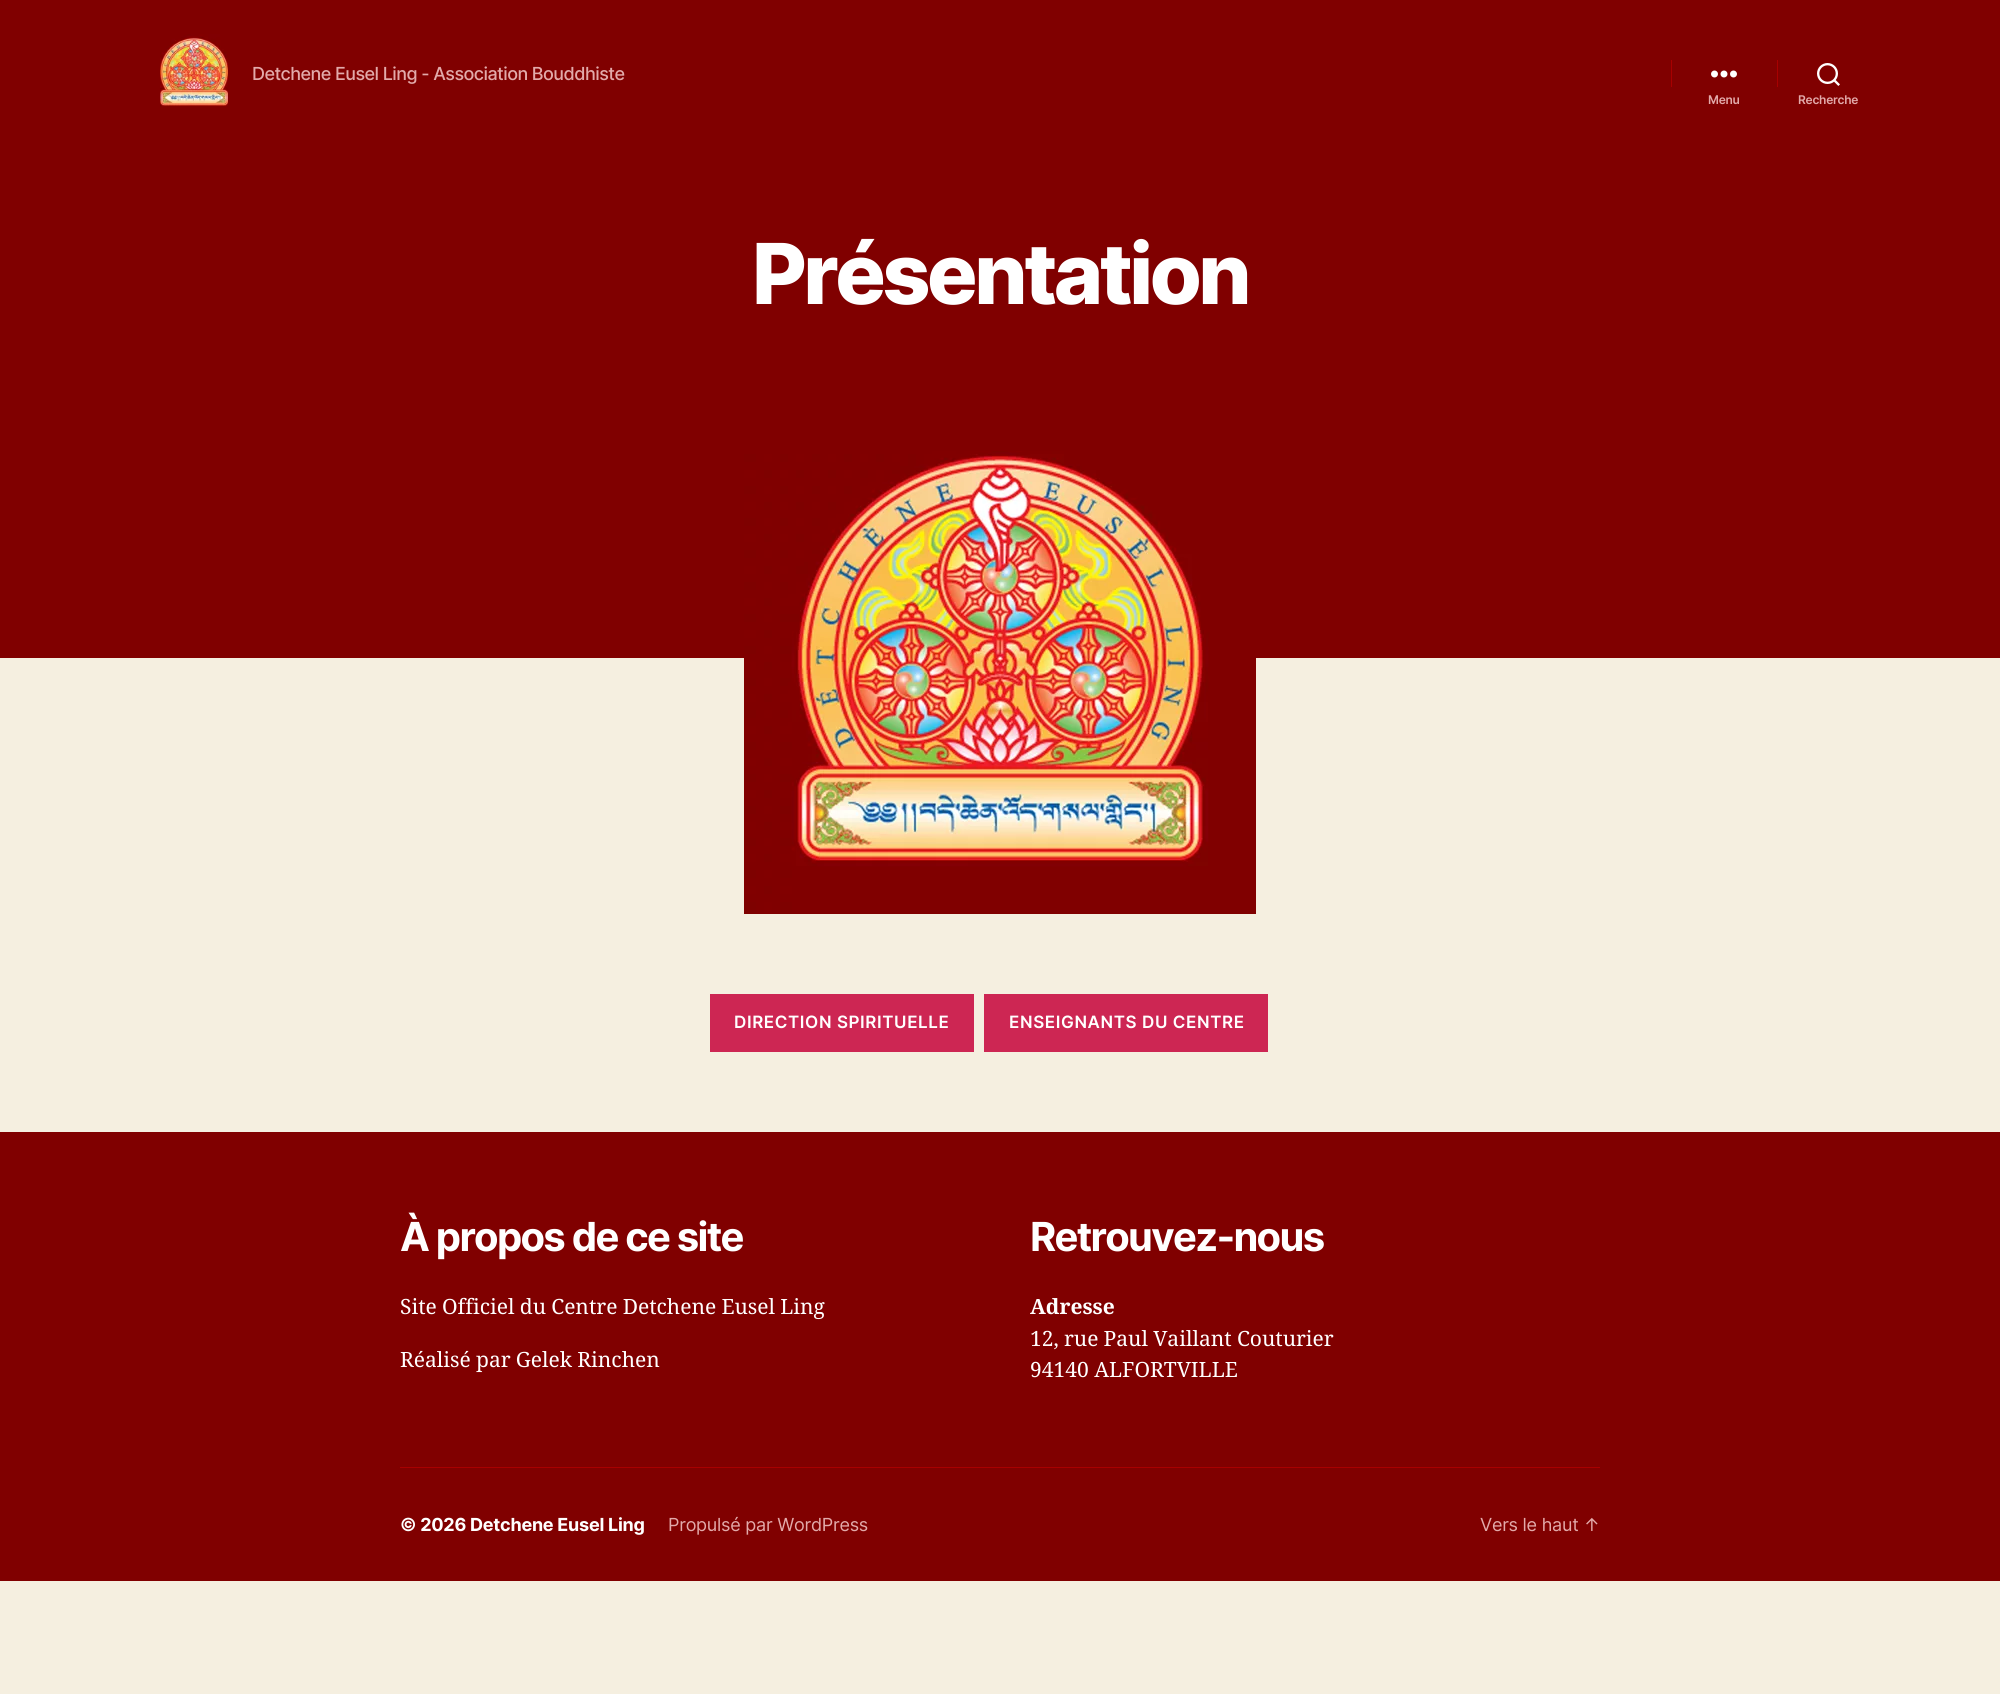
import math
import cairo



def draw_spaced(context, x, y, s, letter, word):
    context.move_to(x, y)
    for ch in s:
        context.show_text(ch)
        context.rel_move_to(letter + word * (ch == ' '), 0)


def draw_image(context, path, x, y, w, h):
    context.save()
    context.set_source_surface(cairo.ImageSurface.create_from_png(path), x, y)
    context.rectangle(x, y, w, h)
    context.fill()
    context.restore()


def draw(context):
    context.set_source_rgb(245 / 255, 239 / 255, 224 / 255)
    context.paint()
    context.set_source_rgb(128 / 255, 0, 0)
    context.rectangle(0, 0, 2000, 658)
    context.fill()
    draw_image(context, "images/1.png", 160, 34, 68, 73)
    context.set_source_rgb(168 / 255, 0, 0)
    context.rectangle(1671, 60, 1, 27)
    context.fill()
    draw_image(context, "images/2.png", 1711, 70, 26, 8)
    context.rectangle(1777, 60, 1, 27)
    context.fill()
    draw_image(context, "images/3.png", 1817, 63, 23, 23)
    draw_image(context, "images/4.png", 744, 451, 512, 463)
    context.set_source_rgb(205 / 255, 38 / 255, 83 / 255)
    context.rectangle(710, 994, 264, 58)
    context.fill()
    context.rectangle(984, 994, 284, 58)
    context.fill()
    context.set_source_rgb(128 / 255, 0, 0)
    context.rectangle(0, 1132, 2000, 449)
    context.fill()
    context.set_source_rgb(168 / 255, 0, 0)
    context.rectangle(400, 1467, 1200, 1)
    context.fill()
    context.select_font_face("Inter Medium")
    context.set_font_size(18)
    context.set_source_rgb(226 / 255, 170 / 255, 170 / 255)
    draw_spaced(context, 252, 80, "Detchene Eusel Ling - Association Bouddhiste", -0.55, 0)
    context.select_font_face("Inter SemiBold")
    context.set_font_size(12)
    draw_spaced(context, 1708, 104, "Menu", -0.25, 0)
    draw_spaced(context, 1798, 104, "Recherche", -0.25, 0)
    context.select_font_face("Inter ExtraBold")
    context.set_font_size(84)
    context.set_source_rgb(1, 1, 1)
    draw_spaced(context, 752, 304, "Présentation", -3.5, 0)
    context.select_font_face("Inter SemiBold")
    context.set_font_size(17)
    draw_spaced(context, 734, 1028, "DIRECTION SPIRITUELLE", 0.6, 0)
    draw_spaced(context, 1009, 1028, "ENSEIGNANTS DU CENTRE", 0.6, 0)
    context.select_font_face("Inter", cairo.FontSlant.NORMAL, cairo.FontWeight.BOLD)
    context.set_font_size(40)
    draw_spaced(context, 400, 1251, "À propos de ce site", -1.7, 0)
    context.select_font_face("Noto Serif")
    context.set_font_size(21)
    draw_spaced(context, 400, 1314, "Site Officiel du Centre Detchene Eusel Ling", 0, -0.25)
    draw_spaced(context, 400, 1367, "Réalisé par Gelek Rinchen", 0, -0.25)
    context.select_font_face("Inter", cairo.FontSlant.NORMAL, cairo.FontWeight.BOLD)
    context.set_font_size(40)
    draw_spaced(context, 1030, 1251, "Retrouvez-nous", -1.7, 0)
    context.select_font_face("Noto Serif", cairo.FontSlant.NORMAL, cairo.FontWeight.BOLD)
    context.set_font_size(21)
    context.move_to(1030, 1314)
    context.show_text("Adresse")
    context.select_font_face("Noto Serif")
    draw_spaced(context, 1030, 1346, "12, rue Paul Vaillant Couturier", 0, -0.25)
    context.move_to(1030, 1377)
    context.show_text("94140 ALFORTVILLE")
    context.select_font_face("Inter", cairo.FontSlant.NORMAL, cairo.FontWeight.BOLD)
    context.set_font_size(18)
    draw_spaced(context, 400, 1531, "© 2026 Detchene Eusel Ling", -0.25, 0)
    context.select_font_face("Inter")
    context.set_source_rgb(226 / 255, 170 / 255, 170 / 255)
    draw_spaced(context, 668, 1531, "Propulsé par WordPress", -0.25, 0)
    draw_spaced(context, 1480, 1531, "Vers le haut ↑", -0.25, 0)


surface = cairo.ImageSurface(cairo.Format.RGB24, 2000, 1694)
context = cairo.Context(surface)
options = cairo.FontOptions()
options.set_hint_metrics(cairo.HintMetrics.OFF)
options.set_hint_style(cairo.HintStyle.NONE)
context.set_font_options(options)
context.set_miter_limit(4)
draw(context)
surface.write_to_png("out.png")
